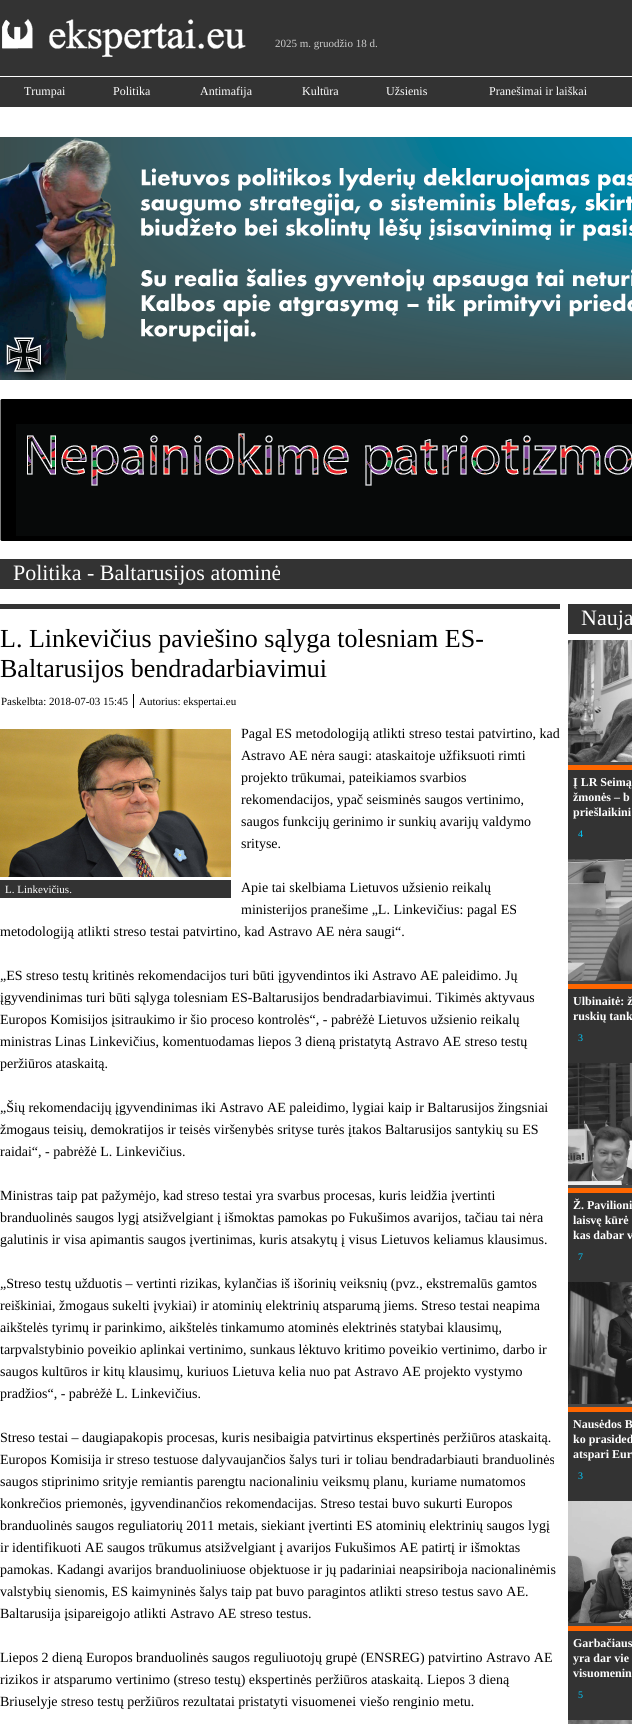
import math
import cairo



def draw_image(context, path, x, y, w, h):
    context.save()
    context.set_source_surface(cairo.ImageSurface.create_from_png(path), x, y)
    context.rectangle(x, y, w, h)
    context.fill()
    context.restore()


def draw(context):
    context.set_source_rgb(1, 1, 1)
    context.paint()
    context.set_source_rgb(51 / 255, 51 / 255, 51 / 255)
    context.rectangle(0, 0, 632, 76)
    context.fill()
    draw_image(context, "images/1.png", 2, 19, 244, 38)
    context.rectangle(0, 77, 632, 30)
    context.fill()
    draw_image(context, "images/2.png", 0, 137, 632, 243)
    draw_image(context, "images/3.png", 0, 399, 632, 142)
    context.rectangle(0, 559, 632, 30)
    context.fill()
    context.rectangle(0, 604, 560, 5)
    context.fill()
    context.set_source_rgb(0, 0, 0)
    context.rectangle(133, 694, 1, 14)
    context.fill()
    draw_image(context, "images/4.png", 0, 729, 231, 148)
    context.set_source_rgb(51 / 255, 51 / 255, 51 / 255)
    context.rectangle(0, 880, 231, 18)
    context.fill()
    context.rectangle(568, 604, 64, 30)
    context.fill()
    context.set_source_rgb(1, 102 / 255, 0)
    context.rectangle(568, 765, 64, 5)
    context.fill()
    context.set_source_rgb(71 / 255, 71 / 255, 71 / 255)
    context.rectangle(568, 762, 64, 3)
    context.fill()
    draw_image(context, "images/5.png", 568, 640, 64, 122)
    context.set_source_rgb(51 / 255, 51 / 255, 51 / 255)
    context.rectangle(568, 770, 64, 89)
    context.fill()
    context.set_source_rgb(1, 102 / 255, 0)
    context.rectangle(568, 984, 64, 5)
    context.fill()
    context.set_source_rgb(71 / 255, 71 / 255, 71 / 255)
    context.rectangle(568, 981, 64, 3)
    context.fill()
    draw_image(context, "images/6.png", 568, 859, 64, 122)
    context.set_source_rgb(51 / 255, 51 / 255, 51 / 255)
    context.rectangle(568, 989, 64, 74)
    context.fill()
    context.set_source_rgb(1, 102 / 255, 0)
    context.rectangle(568, 1188, 64, 5)
    context.fill()
    context.set_source_rgb(71 / 255, 71 / 255, 71 / 255)
    context.rectangle(568, 1185, 64, 3)
    context.fill()
    draw_image(context, "images/7.png", 568, 1063, 64, 122)
    context.set_source_rgb(51 / 255, 51 / 255, 51 / 255)
    context.rectangle(568, 1193, 64, 89)
    context.fill()
    context.set_source_rgb(1, 102 / 255, 0)
    context.rectangle(568, 1407, 64, 5)
    context.fill()
    context.set_source_rgb(71 / 255, 71 / 255, 71 / 255)
    context.rectangle(568, 1404, 64, 3)
    context.fill()
    draw_image(context, "images/8.png", 568, 1282, 64, 122)
    context.set_source_rgb(51 / 255, 51 / 255, 51 / 255)
    context.rectangle(568, 1412, 64, 89)
    context.fill()
    context.set_source_rgb(1, 102 / 255, 0)
    context.rectangle(568, 1626, 64, 5)
    context.fill()
    context.set_source_rgb(71 / 255, 71 / 255, 71 / 255)
    context.rectangle(568, 1623, 64, 3)
    context.fill()
    draw_image(context, "images/9.png", 568, 1501, 64, 122)
    context.set_source_rgb(51 / 255, 51 / 255, 51 / 255)
    context.rectangle(568, 1631, 64, 89)
    context.fill()
    draw_image(context, "images/10.png", 568, 1720, 64, 4)
    context.select_font_face("Liberation Serif")
    context.set_font_size(11)
    context.set_source_rgb(204 / 255, 204 / 255, 204 / 255)
    context.move_to(275, 47)
    context.show_text("2025 m. gruodžio 18 d.")
    context.set_font_size(12)
    context.set_source_rgb(1, 1, 1)
    context.move_to(24, 95)
    context.show_text("Trumpai")
    context.move_to(113, 95)
    context.show_text("Politika")
    context.move_to(200, 95)
    context.show_text("Antimafija")
    context.move_to(302, 95)
    context.show_text("Kultūra")
    context.move_to(386, 95)
    context.show_text("Užsienis")
    context.move_to(489, 95)
    context.show_text("Pranešimai ir laiškai")
    context.set_font_size(22)
    context.move_to(13, 580)
    context.show_text("Politika - Baltarusijos atominė")
    context.set_font_size(26)
    context.set_source_rgb(0, 0, 0)
    context.move_to(0, 647)
    context.show_text("L. Linkevičius paviešino sąlyga tolesniam ES-")
    context.move_to(0, 677)
    context.show_text("Baltarusijos bendradarbiavimui")
    context.set_font_size(11)
    context.move_to(1, 705)
    context.show_text("Paskelbta: 2018-07-03 15:45")
    context.move_to(139, 705)
    context.show_text("Autorius: ekspertai.eu")
    context.set_font_size(14)
    context.move_to(241, 738)
    context.show_text("Pagal ES metodologiją atlikti streso testai patvirtino, kad")
    context.move_to(241, 760)
    context.show_text("Astravo AE nėra saugi: ataskaitoje užfiksuoti rimti")
    context.move_to(241, 782)
    context.show_text("projekto trūkumai, pateikiamos svarbios")
    context.move_to(241, 804)
    context.show_text("rekomendacijos, ypač seisminės saugos vertinimo,")
    context.move_to(241, 826)
    context.show_text("saugos funkcijų gerinimo ir sunkių avarijų valdymo")
    context.move_to(241, 848)
    context.show_text("srityse.")
    context.move_to(241, 892)
    context.show_text("Apie tai skelbiama Lietuvos užsienio reikalų")
    context.move_to(241, 914)
    context.show_text("ministerijos pranešime „L. Linkevičius: pagal ES")
    context.move_to(0, 936)
    context.show_text("metodologiją atlikti streso testai patvirtino, kad Astravo AE nėra saugi“.")
    context.move_to(0, 980)
    context.show_text("„ES streso testų kritinės rekomendacijos turi būti įgyvendintos iki Astravo AE paleidimo. Jų")
    context.move_to(0, 1002)
    context.show_text("įgyvendinimas turi būti sąlyga tolesniam ES-Baltarusijos bendradarbiavimui. Tikimės aktyvaus")
    context.move_to(0, 1024)
    context.show_text("Europos Komisijos įsitraukimo ir šio proceso kontrolės“, - pabrėžė Lietuvos užsienio reikalų")
    context.move_to(0, 1046)
    context.show_text("ministras Linas Linkevičius, komentuodamas liepos 3 dieną pristatytą Astravo AE streso testų")
    context.move_to(0, 1068)
    context.show_text("peržiūros ataskaitą.")
    context.move_to(0, 1112)
    context.show_text("„Šių rekomendacijų įgyvendinimas iki Astravo AE paleidimo, lygiai kaip ir Baltarusijos žingsniai")
    context.move_to(0, 1134)
    context.show_text("žmogaus teisių, demokratijos ir teisės viršenybės srityse turės įtakos Baltarusijos santykių su ES")
    context.move_to(0, 1156)
    context.show_text("raidai“, - pabrėžė L. Linkevičius.")
    context.move_to(0, 1200)
    context.show_text("Ministras taip pat pažymėjo, kad streso testai yra svarbus procesas, kuris leidžia įvertinti")
    context.move_to(0, 1222)
    context.show_text("branduolinės saugos lygį atsižvelgiant į išmoktas pamokas po Fukušimos avarijos, tačiau tai nėra")
    context.move_to(0, 1244)
    context.show_text("galutinis ir visa apimantis saugos įvertinimas, kuris atsakytų į visus Lietuvos keliamus klausimus.")
    context.move_to(0, 1288)
    context.show_text("„Streso testų užduotis – vertinti rizikas, kylančias iš išorinių veiksnių (pvz., ekstremalūs gamtos")
    context.move_to(0, 1310)
    context.show_text("reiškiniai, žmogaus sukelti įvykiai) ir atominių elektrinių atsparumą jiems. Streso testai neapima")
    context.move_to(0, 1332)
    context.show_text("aikštelės tyrimų ir parinkimo, aikštelės tinkamumo atominės elektrinės statybai klausimų,")
    context.move_to(0, 1354)
    context.show_text("tarpvalstybinio poveikio aplinkai vertinimo, sunkaus lėktuvo kritimo poveikio vertinimo, darbo ir")
    context.move_to(0, 1376)
    context.show_text("saugos kultūros ir kitų klausimų, kuriuos Lietuva kelia nuo pat Astravo AE projekto vystymo")
    context.move_to(0, 1398)
    context.show_text("pradžios“, - pabrėžė L. Linkevičius.")
    context.move_to(0, 1442)
    context.show_text("Streso testai – daugiapakopis procesas, kuris nesibaigia patvirtinus ekspertinės peržiūros ataskaitą.")
    context.move_to(0, 1464)
    context.show_text("Europos Komisija ir streso testuose dalyvaujančios šalys turi ir toliau bendradarbiauti branduolinės")
    context.move_to(0, 1486)
    context.show_text("saugos stiprinimo srityje remiantis parengtu nacionaliniu veiksmų planu, kuriame numatomos")
    context.move_to(0, 1508)
    context.show_text("konkrečios priemonės, įgyvendinančios rekomendacijas. Streso testai buvo sukurti Europos")
    context.move_to(0, 1530)
    context.show_text("branduolinės saugos reguliatorių 2011 metais, siekiant įvertinti ES atominių elektrinių saugos lygį")
    context.move_to(0, 1552)
    context.show_text("ir identifikuoti AE saugos trūkumus atsižvelgiant į avarijos Fukušimos AE patirtį ir išmoktas")
    context.move_to(0, 1574)
    context.show_text("pamokas. Kadangi avarijos branduoliniuose objektuose ir jų padariniai neapsiriboja nacionalinėmis")
    context.move_to(0, 1596)
    context.show_text("valstybių sienomis, ES kaimyninės šalys taip pat buvo paragintos atlikti streso testus savo AE.")
    context.move_to(0, 1618)
    context.show_text("Baltarusija įsipareigojo atlikti Astravo AE streso testus.")
    context.move_to(0, 1662)
    context.show_text("Liepos 2 dieną Europos branduolinės saugos reguliuotojų grupė (ENSREG) patvirtino Astravo AE")
    context.move_to(0, 1684)
    context.show_text("rizikos ir atsparumo vertinimo (streso testų) ekspertinės peržiūros ataskaitą. Liepos 3 dieną")
    context.move_to(0, 1706)
    context.show_text("Briuselyje streso testų peržiūros rezultatai pristatyti visuomenei viešo renginio metu.")
    context.set_font_size(11)
    context.set_source_rgb(1, 1, 1)
    context.move_to(5, 893)
    context.show_text("L. Linkevičius.")
    context.set_font_size(22)
    context.move_to(581, 625)
    context.show_text("Nauja")
    context.select_font_face("Liberation Serif", cairo.FontSlant.NORMAL, cairo.FontWeight.BOLD)
    context.set_font_size(12)
    context.move_to(573, 786)
    context.show_text("Į LR Seimą")
    context.move_to(573, 801)
    context.show_text("žmonės – b")
    context.move_to(573, 816)
    context.show_text("priešlaikini")
    context.select_font_face("Liberation Serif")
    context.set_font_size(10)
    context.set_source_rgb(0, 204 / 255, 1)
    context.move_to(578, 837)
    context.show_text("4")
    context.select_font_face("Liberation Serif", cairo.FontSlant.NORMAL, cairo.FontWeight.BOLD)
    context.set_font_size(12)
    context.set_source_rgb(1, 1, 1)
    context.move_to(573, 1005)
    context.show_text("Ulbinaitė: ž")
    context.move_to(573, 1020)
    context.show_text("ruskių tank")
    context.select_font_face("Liberation Serif")
    context.set_font_size(10)
    context.set_source_rgb(0, 204 / 255, 1)
    context.move_to(578, 1041)
    context.show_text("3")
    context.select_font_face("Liberation Serif", cairo.FontSlant.NORMAL, cairo.FontWeight.BOLD)
    context.set_font_size(12)
    context.set_source_rgb(1, 1, 1)
    context.move_to(573, 1209)
    context.show_text("Ž. Pavilioni")
    context.move_to(573, 1224)
    context.show_text("laisvę kūrė")
    context.move_to(573, 1239)
    context.show_text("kas dabar v")
    context.select_font_face("Liberation Serif")
    context.set_font_size(10)
    context.set_source_rgb(0, 204 / 255, 1)
    context.move_to(578, 1260)
    context.show_text("7")
    context.select_font_face("Liberation Serif", cairo.FontSlant.NORMAL, cairo.FontWeight.BOLD)
    context.set_font_size(12)
    context.set_source_rgb(1, 1, 1)
    context.move_to(573, 1428)
    context.show_text("Nausėdos B")
    context.move_to(573, 1443)
    context.show_text("ko prasided")
    context.move_to(573, 1458)
    context.show_text("atspari Eur")
    context.select_font_face("Liberation Serif")
    context.set_font_size(10)
    context.set_source_rgb(0, 204 / 255, 1)
    context.move_to(578, 1479)
    context.show_text("3")
    context.select_font_face("Liberation Serif", cairo.FontSlant.NORMAL, cairo.FontWeight.BOLD)
    context.set_font_size(12)
    context.set_source_rgb(1, 1, 1)
    context.move_to(573, 1647)
    context.show_text("Garbačiaus")
    context.move_to(573, 1662)
    context.show_text("yra dar vie")
    context.move_to(573, 1677)
    context.show_text("visuomenin")
    context.select_font_face("Liberation Serif")
    context.set_font_size(10)
    context.set_source_rgb(0, 204 / 255, 1)
    context.move_to(578, 1698)
    context.show_text("5")


surface = cairo.ImageSurface(cairo.Format.RGB24, 632, 1724)
context = cairo.Context(surface)
options = cairo.FontOptions()
options.set_hint_metrics(cairo.HintMetrics.OFF)
options.set_hint_style(cairo.HintStyle.NONE)
context.set_font_options(options)
context.set_miter_limit(4)
draw(context)
surface.write_to_png("out.png")
